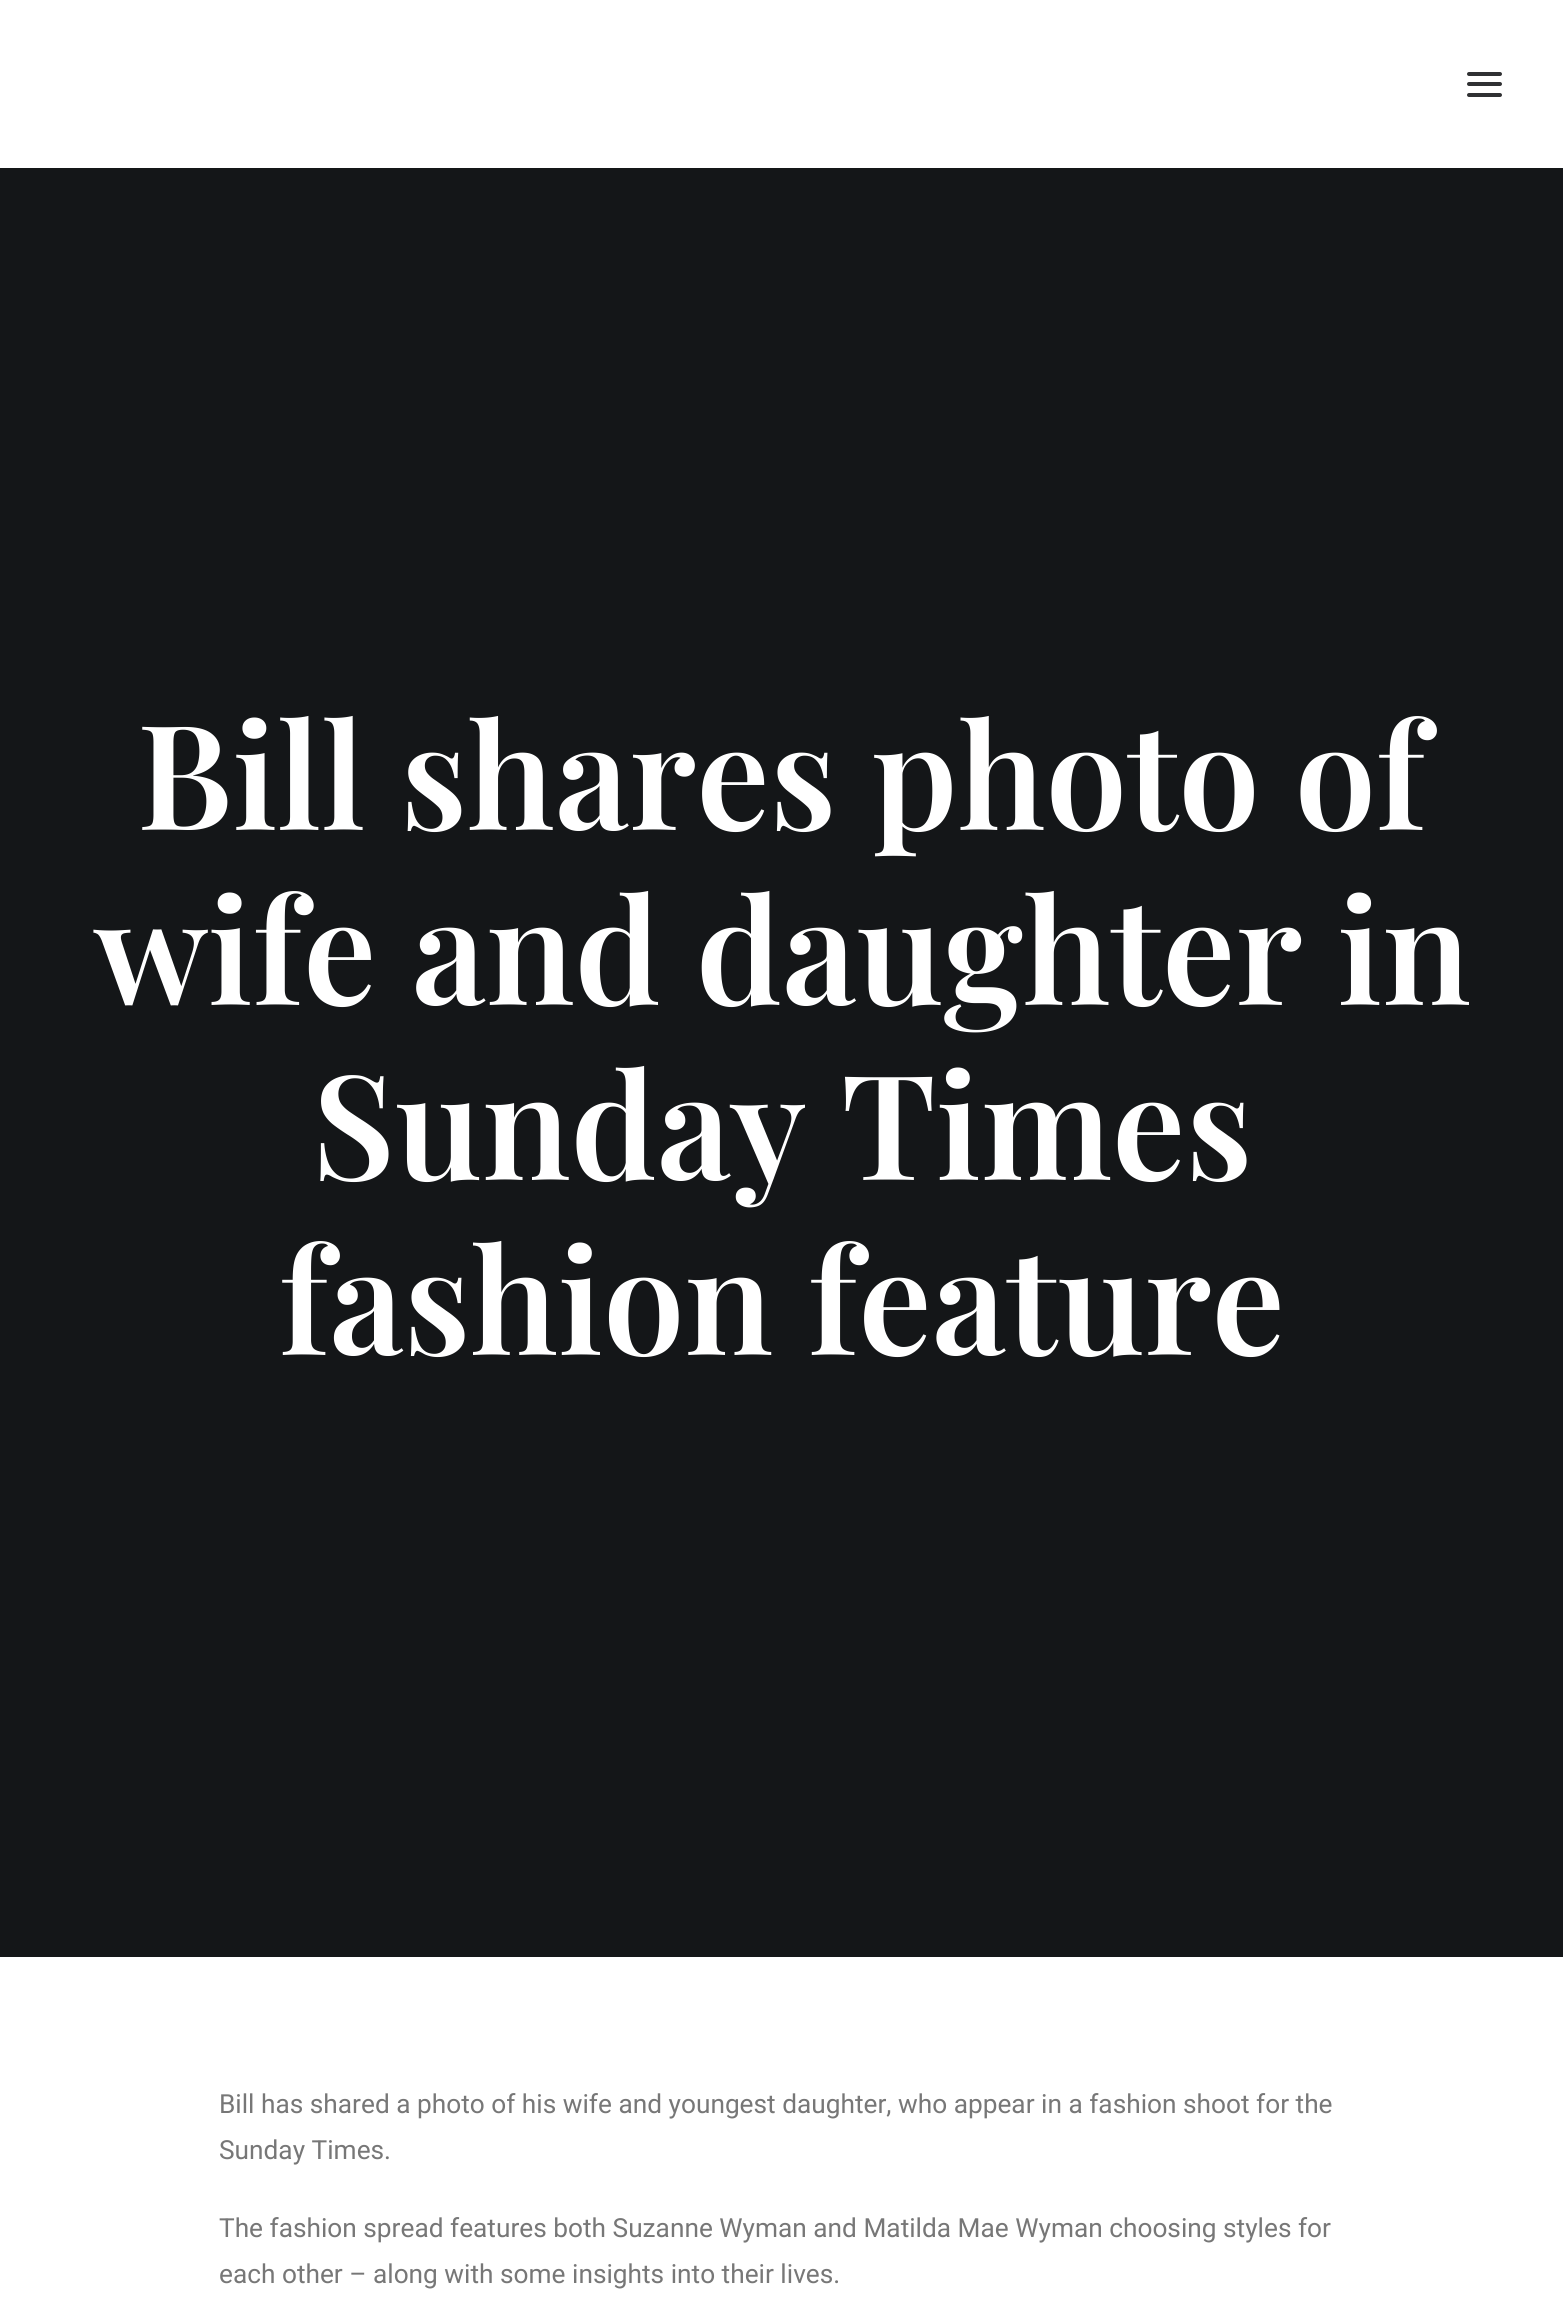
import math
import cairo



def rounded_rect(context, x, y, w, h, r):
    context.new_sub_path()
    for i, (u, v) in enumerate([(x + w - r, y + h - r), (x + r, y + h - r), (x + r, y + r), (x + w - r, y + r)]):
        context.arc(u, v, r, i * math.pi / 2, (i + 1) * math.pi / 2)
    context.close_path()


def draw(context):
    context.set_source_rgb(20 / 255, 22 / 255, 24 / 255)
    context.paint()
    context.set_source_rgb(1, 1, 1)
    context.rectangle(0, 0, 1563, 168)
    context.fill()
    context.set_source_rgb(48 / 255, 49 / 255, 51 / 255)
    rounded_rect(context, 1467, 82, 35, 4, 2)
    context.fill()
    rounded_rect(context, 1467, 72, 35, 4, 2)
    context.fill()
    rounded_rect(context, 1467, 93, 35, 4, 2)
    context.fill()
    context.set_source_rgb(1, 1, 1)
    context.rectangle(0, 1957, 1563, 345)
    context.fill()
    context.select_font_face("Playfair Display SemiBold")
    context.set_font_size(145.75)
    context.move_to(137, 830)
    context.show_text("Bill shares photo of")
    context.move_to(94, 1005)
    context.show_text("wife and daughter in")
    context.move_to(312, 1180)
    context.show_text("Sunday Times")
    context.move_to(279, 1355)
    context.show_text("fashion feature")
    context.select_font_face("Roboto")
    context.set_font_size(26.25)
    context.set_source_rgb(119 / 255, 119 / 255, 119 / 255)
    context.move_to(219, 2113)
    context.show_text("Bill has shared a photo of his wife and youngest daughter, who appear in a fashion shoot for the")
    context.move_to(219, 2159)
    context.show_text("Sunday Times.")
    context.move_to(219, 2237)
    context.show_text("The fashion spread features both Suzanne Wyman and Matilda Mae Wyman choosing styles for")
    context.move_to(219, 2283)
    context.show_text("each other – along with some insights into their lives.")


surface = cairo.ImageSurface(cairo.Format.RGB24, 1563, 2302)
context = cairo.Context(surface)
options = cairo.FontOptions()
options.set_hint_metrics(cairo.HintMetrics.OFF)
options.set_hint_style(cairo.HintStyle.NONE)
context.set_font_options(options)
context.set_miter_limit(4)
draw(context)
surface.write_to_png("out.png")
